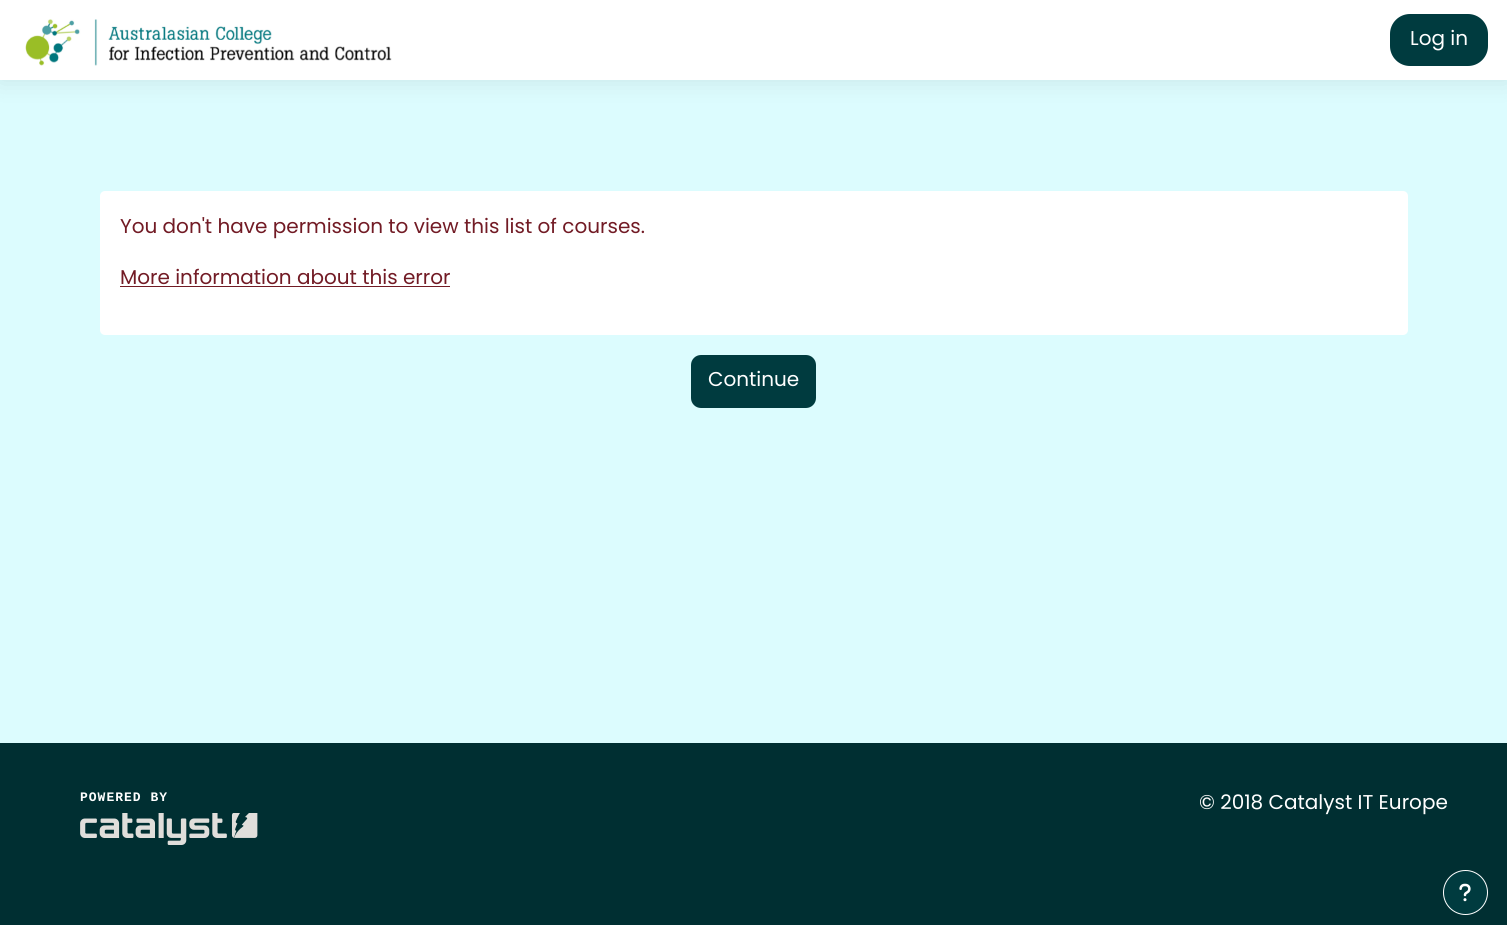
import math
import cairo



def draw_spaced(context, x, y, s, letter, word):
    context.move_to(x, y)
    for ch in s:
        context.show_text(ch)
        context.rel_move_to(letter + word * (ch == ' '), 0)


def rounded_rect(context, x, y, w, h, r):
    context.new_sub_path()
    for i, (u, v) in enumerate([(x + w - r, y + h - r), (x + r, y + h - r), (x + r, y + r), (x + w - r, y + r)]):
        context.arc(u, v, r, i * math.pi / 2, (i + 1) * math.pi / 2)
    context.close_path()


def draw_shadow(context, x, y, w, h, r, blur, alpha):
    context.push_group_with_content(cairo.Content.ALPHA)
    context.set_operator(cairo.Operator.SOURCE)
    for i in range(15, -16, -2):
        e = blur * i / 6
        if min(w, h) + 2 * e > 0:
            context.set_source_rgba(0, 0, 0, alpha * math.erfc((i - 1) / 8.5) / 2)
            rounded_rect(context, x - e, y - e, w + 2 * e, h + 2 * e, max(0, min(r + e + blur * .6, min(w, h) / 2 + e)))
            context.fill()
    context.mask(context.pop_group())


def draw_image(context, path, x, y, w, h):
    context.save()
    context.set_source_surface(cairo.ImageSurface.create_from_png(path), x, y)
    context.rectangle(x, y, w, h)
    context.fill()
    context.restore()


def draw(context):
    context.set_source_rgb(220 / 255, 252 / 255, 254 / 255)
    context.paint()
    context.set_source_rgb(0, 0, 0)
    draw_shadow(context, 0, 0, 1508, 80, 0, 12.5, 0.1)
    context.set_source_rgb(1, 1, 1)
    context.rectangle(0, 0, 1507, 80)
    context.fill()
    draw_image(context, "images/1.png", 25, 19, 367, 47)
    context.set_source_rgb(0, 59 / 255, 63 / 255)
    rounded_rect(context, 1390, 14, 98, 52, 20)
    context.fill()
    context.set_source_rgb(1, 1, 1)
    rounded_rect(context, 100, 191, 1308, 144, 5)
    context.fill()
    context.set_source_rgb(114 / 255, 27 / 255, 37 / 255)
    context.rectangle(120, 286, 330, 1)
    context.fill()
    context.set_source_rgb(0, 59 / 255, 63 / 255)
    rounded_rect(context, 692.5, 356.5, 122, 50, 8.5)
    context.fill_preserve()
    context.set_line_width(3)
    context.stroke()
    context.set_source_rgb(0, 47 / 255, 50 / 255)
    context.rectangle(0, 743, 1507, 182)
    context.fill()
    draw_image(context, "images/2.png", 80, 813, 178, 32)
    context.set_source_rgb(0, 59 / 255, 63 / 255)
    context.arc(1465.5, 892.5, 22, 0, 2 * math.pi)
    context.fill_preserve()
    context.set_source_rgb(1, 1, 1)
    context.set_line_width(1)
    context.stroke()
    draw_image(context, "images/3.png", 1459, 883, 12, 19)
    context.select_font_face("Poppins")
    context.set_font_size(20)
    context.move_to(1410, 45)
    context.show_text("Log in")
    context.set_source_rgb(114 / 255, 27 / 255, 37 / 255)
    context.move_to(120, 233)
    context.show_text("You don't have permission to view this list of courses.")
    context.move_to(120, 284)
    context.show_text("More information about this error")
    context.set_source_rgb(1, 1, 1)
    context.move_to(708, 386)
    context.show_text("Continue")
    context.select_font_face("Liberation Mono", cairo.FontSlant.NORMAL, cairo.FontWeight.BOLD)
    context.set_font_size(13)
    draw_spaced(context, 80, 801, "POWERED BY", 1, 0)
    context.select_font_face("Poppins")
    context.set_font_size(20)
    context.move_to(1199, 809)
    context.show_text("© 2018 Catalyst IT Europe")


surface = cairo.ImageSurface(cairo.Format.RGB24, 1507, 925)
context = cairo.Context(surface)
options = cairo.FontOptions()
options.set_hint_metrics(cairo.HintMetrics.OFF)
options.set_hint_style(cairo.HintStyle.NONE)
context.set_font_options(options)
context.set_miter_limit(4)
draw(context)
surface.write_to_png("out.png")
